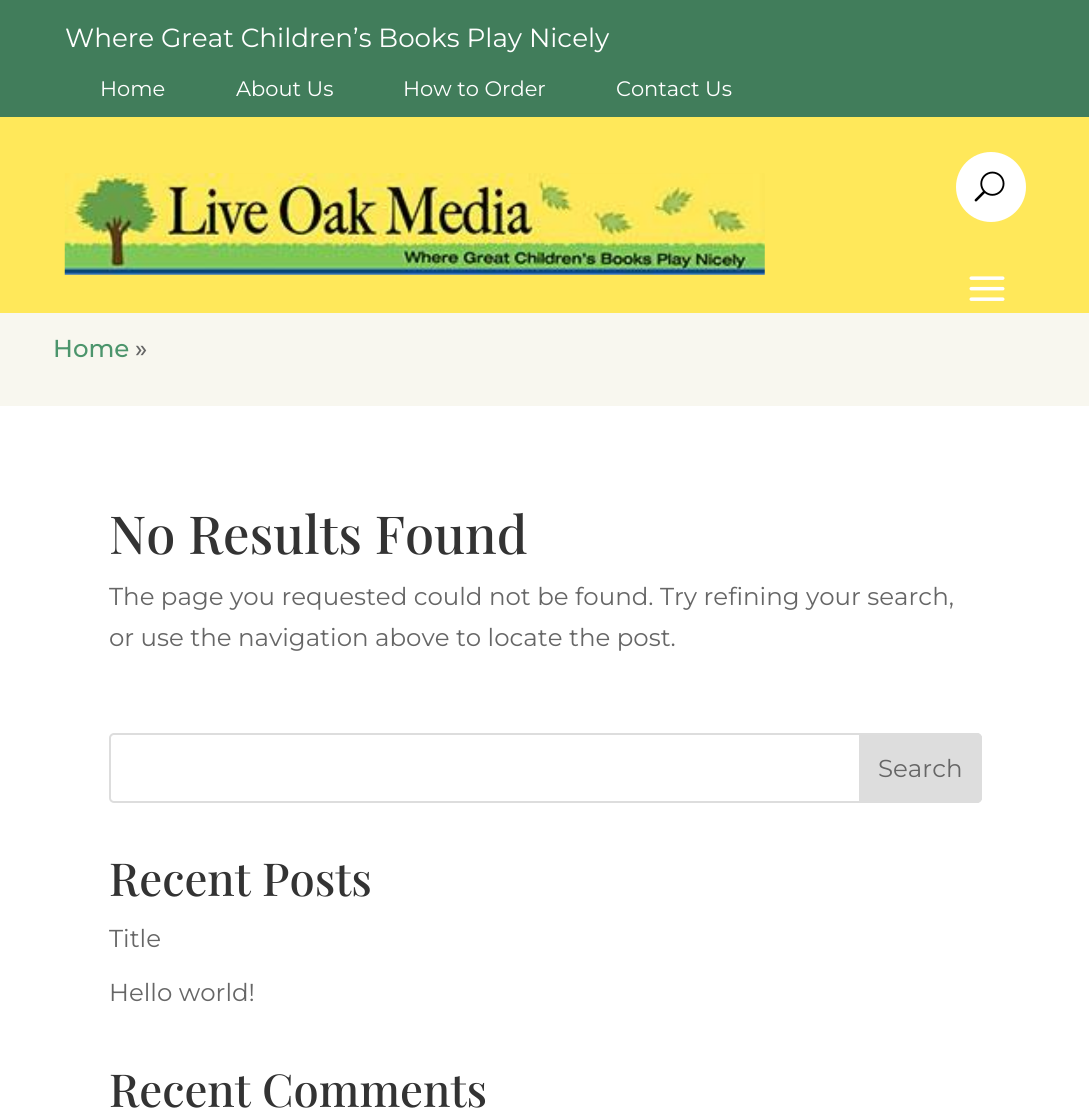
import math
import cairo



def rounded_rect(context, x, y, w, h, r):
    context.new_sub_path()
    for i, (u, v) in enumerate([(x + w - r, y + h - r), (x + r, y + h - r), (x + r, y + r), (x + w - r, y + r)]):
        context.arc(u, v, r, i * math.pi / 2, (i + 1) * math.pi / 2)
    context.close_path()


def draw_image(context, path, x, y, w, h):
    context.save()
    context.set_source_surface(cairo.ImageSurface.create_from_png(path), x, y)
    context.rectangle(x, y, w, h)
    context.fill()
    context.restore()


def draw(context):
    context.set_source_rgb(1, 1, 1)
    context.paint()
    context.set_source_rgb(65 / 255, 125 / 255, 91 / 255)
    context.rectangle(0, 0, 1089, 117)
    context.fill()
    context.set_source_rgb(1, 232 / 255, 90 / 255)
    context.rectangle(0, 117, 1089, 196)
    context.fill()
    draw_image(context, "images/1.png", 64, 173, 701, 102)
    context.set_source_rgb(1, 1, 1)
    context.arc(991, 187, 35, 0, 2 * math.pi)
    context.fill()
    draw_image(context, "images/2.png", 974, 171, 31, 31)
    draw_image(context, "images/3.png", 969, 276, 36, 25)
    context.set_source_rgb(248 / 255, 247 / 255, 239 / 255)
    context.rectangle(0, 313, 1089, 93)
    context.fill()
    rounded_rect(context, 110, 734, 871, 68, 4)
    context.set_source_rgb(221 / 255, 221 / 255, 221 / 255)
    context.stroke()
    context.new_path()
    context.move_to(860, 734)
    context.line_to(977, 734)
    context.curve_to(979, 734, 981, 736, 981, 738)
    context.line_to(981, 798)
    context.curve_to(981, 800, 979, 802, 977, 802)
    context.line_to(860, 802)
    context.close_path()
    context.fill_preserve()
    context.stroke()
    context.select_font_face("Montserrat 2 Thin")
    context.set_font_size(26.25)
    context.set_source_rgb(1, 1, 1)
    context.move_to(65, 47)
    context.show_text("Where Great Children’s Books Play Nicely")
    context.set_font_size(21)
    context.move_to(100, 96)
    context.show_text("Home")
    context.move_to(236, 96)
    context.show_text("About Us")
    context.move_to(403, 96)
    context.show_text("How to Order")
    context.move_to(616, 96)
    context.show_text("Contact Us")
    context.select_font_face("Montserrat Thin")
    context.set_font_size(24.5)
    context.set_source_rgb(76 / 255, 149 / 255, 108 / 255)
    context.move_to(53, 357)
    context.show_text("Home")
    context.set_source_rgb(102 / 255, 102 / 255, 102 / 255)
    context.move_to(135, 357)
    context.show_text("»")
    context.select_font_face("Playfair Display Medium")
    context.set_font_size(52.5)
    context.set_source_rgb(51 / 255, 51 / 255, 51 / 255)
    context.move_to(109, 554)
    context.show_text("No Results Found")
    context.select_font_face("Montserrat 2 Thin")
    context.set_font_size(24.5)
    context.set_source_rgb(102 / 255, 102 / 255, 102 / 255)
    context.move_to(109, 605)
    context.show_text("The page you requested could not be found. Try refining your search,")
    context.move_to(109, 646)
    context.show_text("or use the navigation above to locate the post.")
    context.move_to(878, 777)
    context.show_text("Search")
    context.select_font_face("Playfair Display Medium")
    context.set_font_size(45.5)
    context.set_source_rgb(51 / 255, 51 / 255, 51 / 255)
    context.move_to(109, 896)
    context.show_text("Recent Posts")
    context.select_font_face("Montserrat 2 Thin")
    context.set_font_size(24.5)
    context.set_source_rgb(102 / 255, 102 / 255, 102 / 255)
    context.move_to(109, 947)
    context.show_text("Title")
    context.move_to(109, 1001)
    context.show_text("Hello world!")
    context.select_font_face("Playfair Display Medium")
    context.set_font_size(45.5)
    context.set_source_rgb(51 / 255, 51 / 255, 51 / 255)
    context.move_to(109, 1107)
    context.show_text("Recent Comments")


surface = cairo.ImageSurface(cairo.Format.RGB24, 1089, 1108)
context = cairo.Context(surface)
options = cairo.FontOptions()
options.set_hint_metrics(cairo.HintMetrics.OFF)
options.set_hint_style(cairo.HintStyle.NONE)
context.set_font_options(options)
context.set_miter_limit(4)
draw(context)
surface.write_to_png("out.png")
